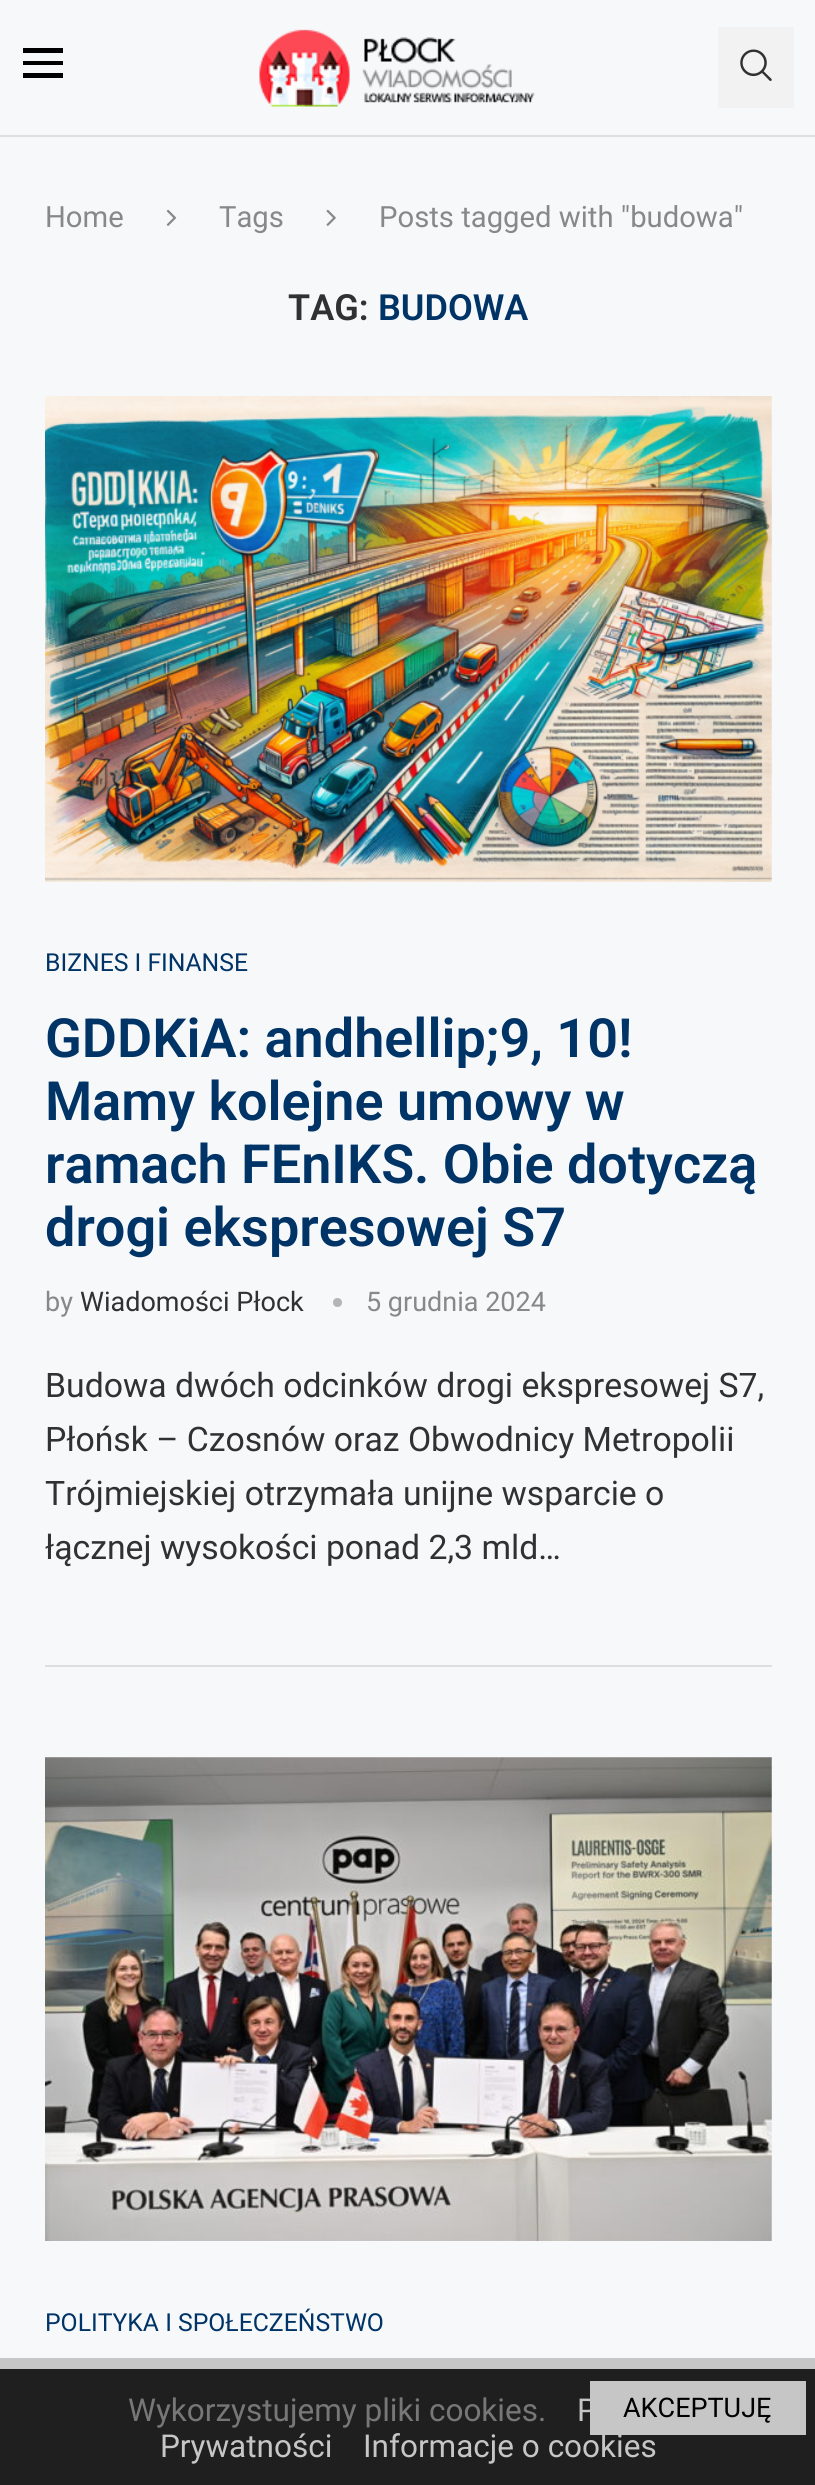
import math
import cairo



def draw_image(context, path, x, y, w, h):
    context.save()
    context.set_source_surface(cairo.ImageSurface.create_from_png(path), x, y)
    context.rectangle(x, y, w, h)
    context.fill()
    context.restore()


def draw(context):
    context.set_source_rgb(246 / 255, 248 / 255, 250 / 255)
    context.paint()
    context.set_source_rgb(222 / 255, 222 / 255, 222 / 255)
    context.rectangle(0, 135, 815, 2)
    context.fill()
    context.set_source_rgb(0, 0, 0)
    context.rectangle(23, 48, 40, 5)
    context.fill()
    context.rectangle(23, 61, 40, 4)
    context.fill()
    context.rectangle(23, 73, 40, 5)
    context.fill()
    draw_image(context, "images/1.png", 259, 29, 276, 78)
    context.set_source_rgb(242 / 255, 242 / 255, 242 / 255)
    context.rectangle(718, 27, 76, 81)
    context.fill()
    draw_image(context, "images/2.png", 740, 49, 32, 32)
    draw_image(context, "images/3.png", 166, 209, 11, 17)
    draw_image(context, "images/4.png", 326, 209, 10, 17)
    context.set_source_rgb(222 / 255, 222 / 255, 222 / 255)
    context.rectangle(45, 1665, 727, 2)
    context.fill()
    draw_image(context, "images/5.png", 45, 396, 727, 486)
    context.set_source_rgb(180 / 255, 181 / 255, 182 / 255)
    context.arc(337.5, 1302.5, 4.5, 0, 2 * math.pi)
    context.fill()
    context.set_source_rgb(245 / 255, 245 / 255, 245 / 255)
    context.rectangle(45, 1757, 727, 484)
    context.fill()
    draw_image(context, "images/6.png", 45, 1757, 727, 484)
    context.set_source_rgb(31 / 255, 31 / 255, 31 / 255)
    context.rectangle(0, 2369, 815, 116)
    context.fill()
    context.set_source_rgb(198 / 255, 198 / 255, 198 / 255)
    context.rectangle(0, 2358, 815, 11)
    context.fill()
    context.rectangle(590, 2381, 216, 54)
    context.fill()
    context.select_font_face("Roboto")
    context.set_font_size(29.25)
    context.set_source_rgb(136 / 255, 136 / 255, 136 / 255)
    context.move_to(45, 227)
    context.show_text("Home")
    context.move_to(219, 227)
    context.show_text("Tags")
    context.move_to(379, 227)
    context.show_text("Posts tagged with \"budowa\"")
    context.select_font_face("Roboto SemiBold")
    context.set_font_size(36)
    context.set_source_rgb(49 / 255, 49 / 255, 49 / 255)
    context.move_to(288, 320)
    context.show_text("TAG:")
    context.set_source_rgb(0, 51 / 255, 102 / 255)
    context.move_to(378, 320)
    context.show_text("BUDOWA")
    context.select_font_face("Roboto")
    context.set_font_size(24.75)
    context.move_to(45, 971)
    context.show_text("BIZNES I FINANSE")
    context.select_font_face("Roboto SemiBold")
    context.set_font_size(54)
    context.move_to(45, 1057)
    context.show_text("GDDKiA: andhellip;9, 10!")
    context.move_to(45, 1120)
    context.show_text("Mamy kolejne umowy w")
    context.move_to(45, 1183)
    context.show_text("ramach FEnIKS. Obie dotyczą")
    context.move_to(45, 1246)
    context.show_text("drogi ekspresowej S7")
    context.select_font_face("Roboto")
    context.set_font_size(27)
    context.set_source_rgb(136 / 255, 136 / 255, 136 / 255)
    context.move_to(45, 1311)
    context.show_text("by")
    context.set_source_rgb(49 / 255, 49 / 255, 49 / 255)
    context.move_to(80, 1311)
    context.show_text("Wiadomości Płock")
    context.set_source_rgb(136 / 255, 136 / 255, 136 / 255)
    context.move_to(366, 1311)
    context.show_text("5 grudnia 2024")
    context.set_font_size(33.75)
    context.set_source_rgb(49 / 255, 49 / 255, 49 / 255)
    context.move_to(45, 1397)
    context.show_text("Budowa dwóch odcinków drogi ekspresowej S7,")
    context.move_to(45, 1451)
    context.show_text("Płońsk – Czosnów oraz Obwodnicy Metropolii")
    context.move_to(45, 1505)
    context.show_text("Trójmiejskiej otrzymała unijne wsparcie o")
    context.move_to(45, 1559)
    context.show_text("łącznej wysokości ponad 2,3 mld…")
    context.set_font_size(24.75)
    context.set_source_rgb(0, 51 / 255, 102 / 255)
    context.move_to(45, 2331)
    context.show_text("POLITYKA I SPOŁECZEŃSTWO")
    context.set_font_size(31.5)
    context.set_source_rgb(119 / 255, 119 / 255, 119 / 255)
    context.move_to(128, 2421)
    context.show_text("Wykorzystujemy pliki cookies.")
    context.set_source_rgb(198 / 255, 198 / 255, 198 / 255)
    context.move_to(577, 2421)
    context.show_text("P")
    context.set_font_size(27)
    context.set_source_rgb(0, 0, 0)
    context.move_to(623, 2417)
    context.show_text("AKCEPTUJĘ")
    context.set_font_size(31.5)
    context.set_source_rgb(198 / 255, 198 / 255, 198 / 255)
    context.move_to(160, 2457)
    context.show_text("Prywatności")
    context.move_to(363, 2457)
    context.show_text("Informacje o cookies")


surface = cairo.ImageSurface(cairo.Format.RGB24, 815, 2485)
context = cairo.Context(surface)
options = cairo.FontOptions()
options.set_hint_metrics(cairo.HintMetrics.OFF)
options.set_hint_style(cairo.HintStyle.NONE)
context.set_font_options(options)
context.set_miter_limit(4)
draw(context)
surface.write_to_png("out.png")
